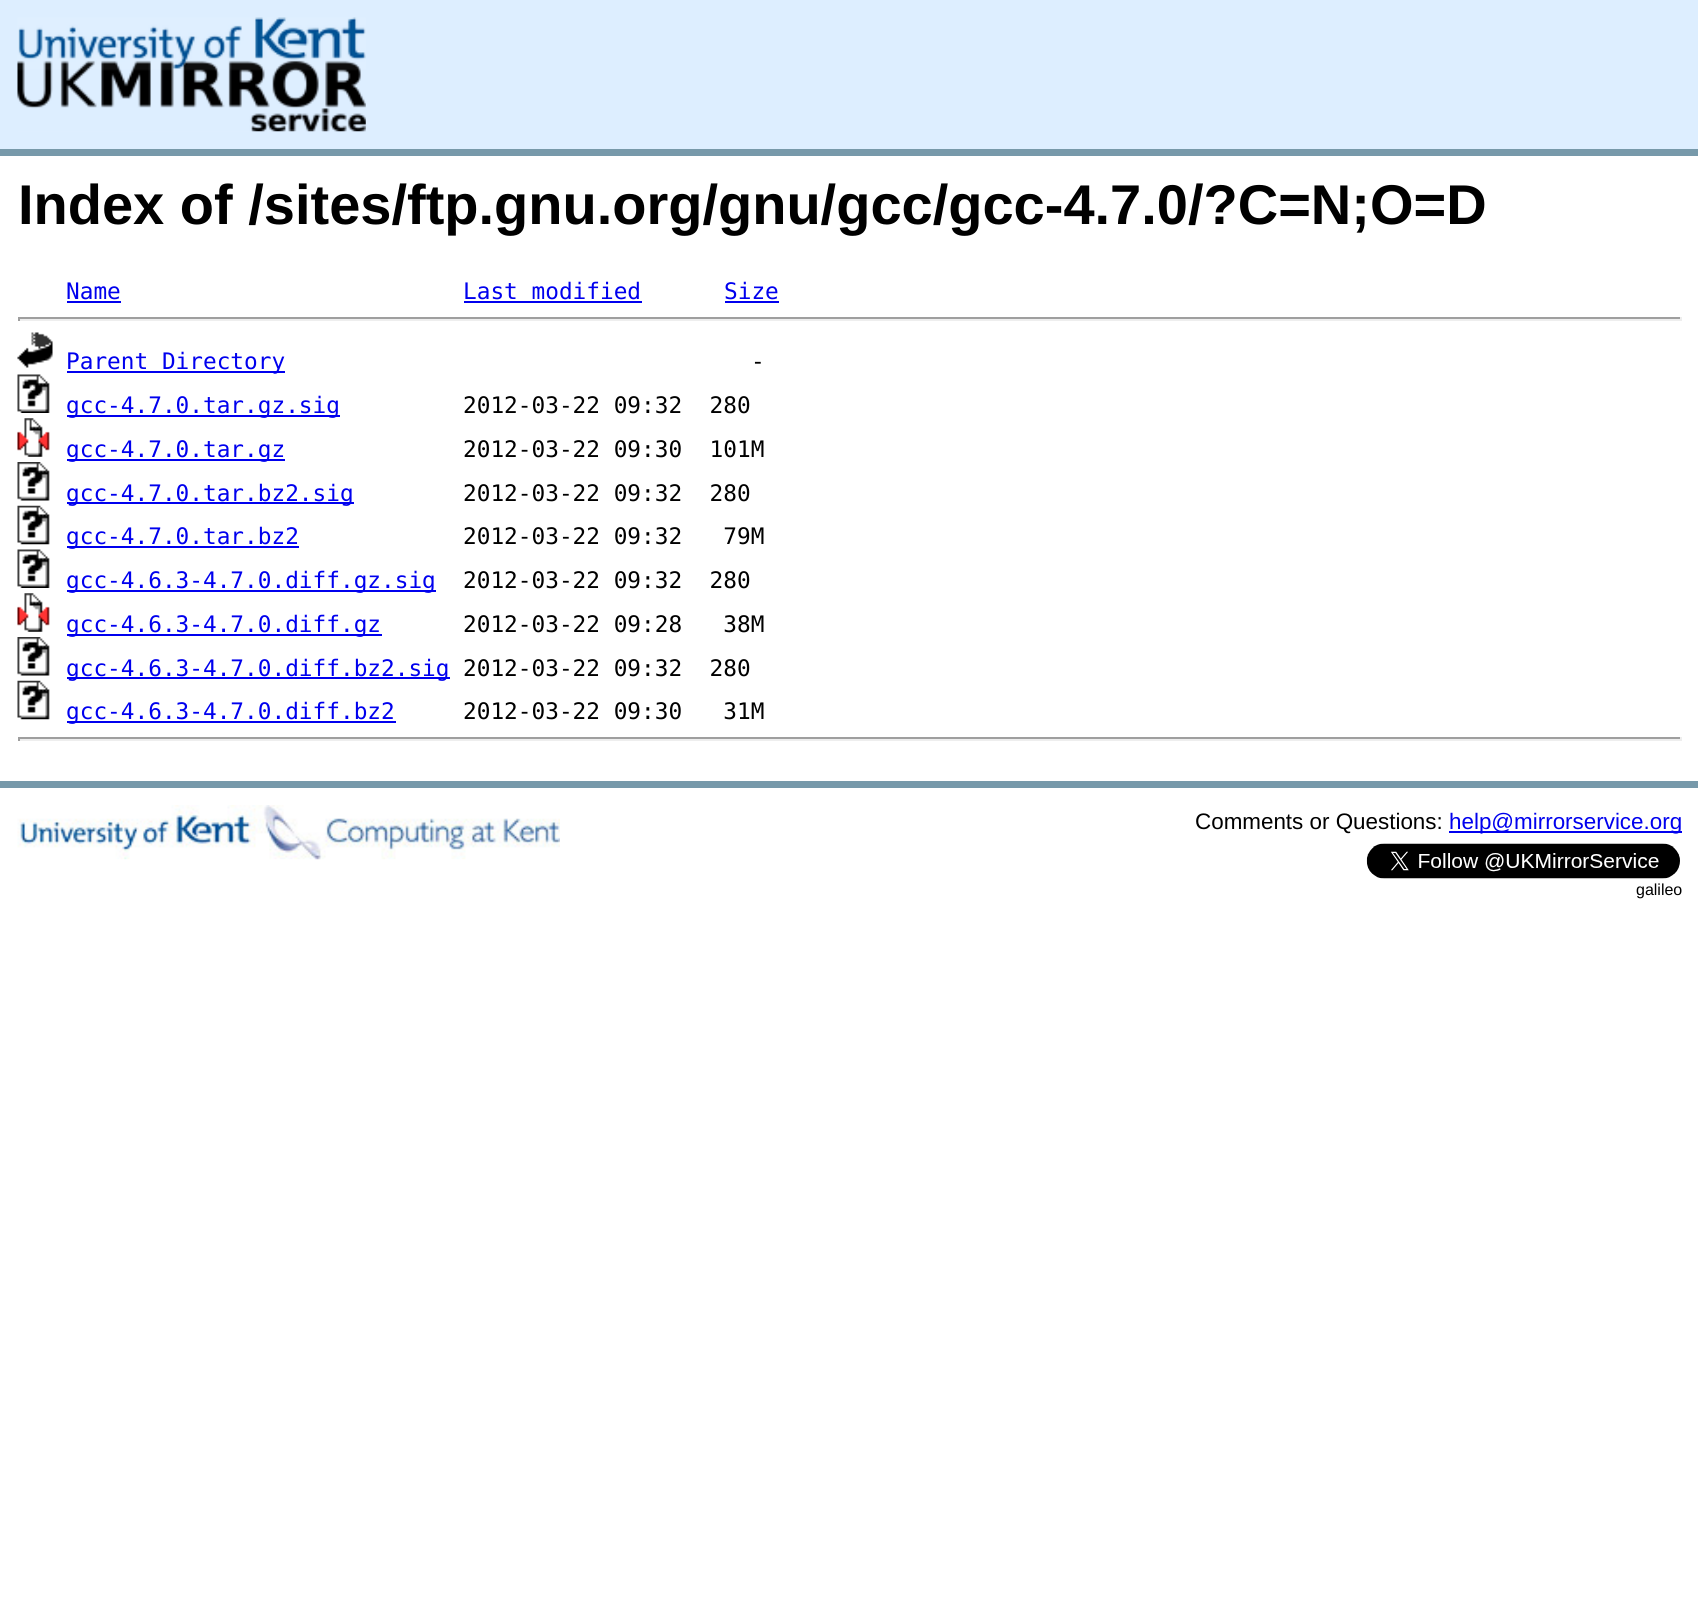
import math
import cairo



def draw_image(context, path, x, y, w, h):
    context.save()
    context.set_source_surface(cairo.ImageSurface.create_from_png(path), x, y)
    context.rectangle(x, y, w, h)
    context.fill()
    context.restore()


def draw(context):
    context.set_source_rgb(1, 1, 1)
    context.paint()
    context.set_source_rgb(221 / 255, 238 / 255, 1)
    context.rectangle(0, 0, 1698, 149)
    context.fill()
    context.set_source_rgb(119 / 255, 153 / 255, 170 / 255)
    context.rectangle(0, 149, 1698, 7)
    context.fill()
    draw_image(context, "images/1.png", 17, 17, 349, 115)
    context.set_source_rgb(0, 0, 238 / 255)
    context.rectangle(67, 301, 54, 2)
    context.fill()
    context.rectangle(464, 301, 178, 2)
    context.fill()
    context.rectangle(725, 301, 54, 2)
    context.fill()
    context.set_source_rgb(159 / 255, 159 / 255, 159 / 255)
    context.rectangle(18, 317, 1664, 2)
    context.fill()
    context.set_source_rgb(238 / 255, 238 / 255, 238 / 255)
    context.rectangle(1680, 317, 2, 4)
    context.fill()
    context.rectangle(18, 319, 1664, 2)
    context.fill()
    context.set_source_rgb(159 / 255, 159 / 255, 159 / 255)
    context.rectangle(18, 317, 2, 4)
    context.fill()
    draw_image(context, "images/2.png", 17, 332, 36, 36)
    context.set_source_rgb(0, 0, 238 / 255)
    context.rectangle(67, 371, 218, 2)
    context.fill()
    draw_image(context, "images/3.png", 17, 374, 33, 39)
    context.rectangle(67, 415, 273, 2)
    context.fill()
    draw_image(context, "images/4.png", 17, 418, 33, 39)
    context.rectangle(67, 459, 218, 2)
    context.fill()
    draw_image(context, "images/5.png", 17, 462, 33, 39)
    context.rectangle(67, 502, 287, 2)
    context.fill()
    draw_image(context, "images/6.png", 17, 505, 33, 40)
    context.rectangle(67, 546, 232, 2)
    context.fill()
    draw_image(context, "images/3.png", 17, 549, 33, 39)
    context.rectangle(67, 590, 369, 2)
    context.fill()
    draw_image(context, "images/4.png", 17, 593, 33, 39)
    context.rectangle(67, 634, 315, 2)
    context.fill()
    draw_image(context, "images/5.png", 17, 637, 33, 39)
    context.rectangle(67, 677, 383, 2)
    context.fill()
    draw_image(context, "images/6.png", 17, 680, 33, 40)
    context.rectangle(67, 721, 329, 2)
    context.fill()
    context.set_source_rgb(159 / 255, 159 / 255, 159 / 255)
    context.rectangle(18, 737, 1664, 2)
    context.fill()
    context.set_source_rgb(238 / 255, 238 / 255, 238 / 255)
    context.rectangle(1680, 737, 2, 4)
    context.fill()
    context.rectangle(18, 739, 1664, 2)
    context.fill()
    context.set_source_rgb(159 / 255, 159 / 255, 159 / 255)
    context.rectangle(18, 737, 2, 4)
    context.fill()
    context.set_source_rgb(119 / 255, 153 / 255, 170 / 255)
    context.rectangle(0, 781, 1698, 7)
    context.fill()
    draw_image(context, "images/7.png", 17, 805, 543, 55)
    context.set_source_rgb(0, 0, 238 / 255)
    context.rectangle(1449, 831, 233, 2)
    context.fill()
    draw_image(context, "images/8.png", 1366, 843, 314, 36)
    context.select_font_face("Liberation Sans", cairo.FontSlant.NORMAL, cairo.FontWeight.BOLD)
    context.set_font_size(56)
    context.set_source_rgb(0, 0, 0)
    context.move_to(18, 224)
    context.show_text("Index of /sites/ftp.gnu.org/gnu/gcc/gcc-4.7.0/?C=N;O=D")
    context.select_font_face("DejaVu Sans Mono")
    context.set_font_size(22.75)
    context.set_source_rgb(0, 0, 238 / 255)
    context.move_to(66, 299)
    context.show_text("Name")
    context.move_to(463, 299)
    context.show_text("Last modified")
    context.move_to(724, 299)
    context.show_text("Size")
    context.move_to(66, 369)
    context.show_text("Parent Directory")
    context.set_source_rgb(0, 0, 0)
    context.move_to(751, 369)
    context.show_text("-")
    context.set_source_rgb(0, 0, 238 / 255)
    context.move_to(66, 413)
    context.show_text("gcc-4.7.0.tar.gz.sig")
    context.set_source_rgb(0, 0, 0)
    context.move_to(463, 413)
    context.show_text("2012-03-22 09:32  280")
    context.set_source_rgb(0, 0, 238 / 255)
    context.move_to(66, 457)
    context.show_text("gcc-4.7.0.tar.gz")
    context.set_source_rgb(0, 0, 0)
    context.move_to(463, 457)
    context.show_text("2012-03-22 09:30  101M")
    context.set_source_rgb(0, 0, 238 / 255)
    context.move_to(66, 501)
    context.show_text("gcc-4.7.0.tar.bz2.sig")
    context.set_source_rgb(0, 0, 0)
    context.move_to(463, 501)
    context.show_text("2012-03-22 09:32  280")
    context.set_source_rgb(0, 0, 238 / 255)
    context.move_to(66, 544)
    context.show_text("gcc-4.7.0.tar.bz2")
    context.set_source_rgb(0, 0, 0)
    context.move_to(463, 544)
    context.show_text("2012-03-22 09:32   79M")
    context.set_source_rgb(0, 0, 238 / 255)
    context.move_to(66, 588)
    context.show_text("gcc-4.6.3-4.7.0.diff.gz.sig")
    context.set_source_rgb(0, 0, 0)
    context.move_to(463, 588)
    context.show_text("2012-03-22 09:32  280")
    context.set_source_rgb(0, 0, 238 / 255)
    context.move_to(66, 632)
    context.show_text("gcc-4.6.3-4.7.0.diff.gz")
    context.set_source_rgb(0, 0, 0)
    context.move_to(463, 632)
    context.show_text("2012-03-22 09:28   38M")
    context.set_source_rgb(0, 0, 238 / 255)
    context.move_to(66, 676)
    context.show_text("gcc-4.6.3-4.7.0.diff.bz2.sig")
    context.set_source_rgb(0, 0, 0)
    context.move_to(463, 676)
    context.show_text("2012-03-22 09:32  280")
    context.set_source_rgb(0, 0, 238 / 255)
    context.move_to(66, 719)
    context.show_text("gcc-4.6.3-4.7.0.diff.bz2")
    context.set_source_rgb(0, 0, 0)
    context.move_to(463, 719)
    context.show_text("2012-03-22 09:30   31M")
    context.select_font_face("Liberation Sans")
    context.set_font_size(22.4)
    context.move_to(1195, 829)
    context.show_text("Comments or Questions:")
    context.set_source_rgb(0, 0, 238 / 255)
    context.move_to(1449, 829)
    context.show_text("help@mirrorservice.org")
    context.set_font_size(16)
    context.set_source_rgb(0, 0, 0)
    context.move_to(1636, 895)
    context.show_text("galileo")


surface = cairo.ImageSurface(cairo.Format.RGB24, 1698, 1599)
context = cairo.Context(surface)
options = cairo.FontOptions()
options.set_hint_metrics(cairo.HintMetrics.OFF)
options.set_hint_style(cairo.HintStyle.NONE)
context.set_font_options(options)
context.set_miter_limit(4)
draw(context)
surface.write_to_png("out.png")
